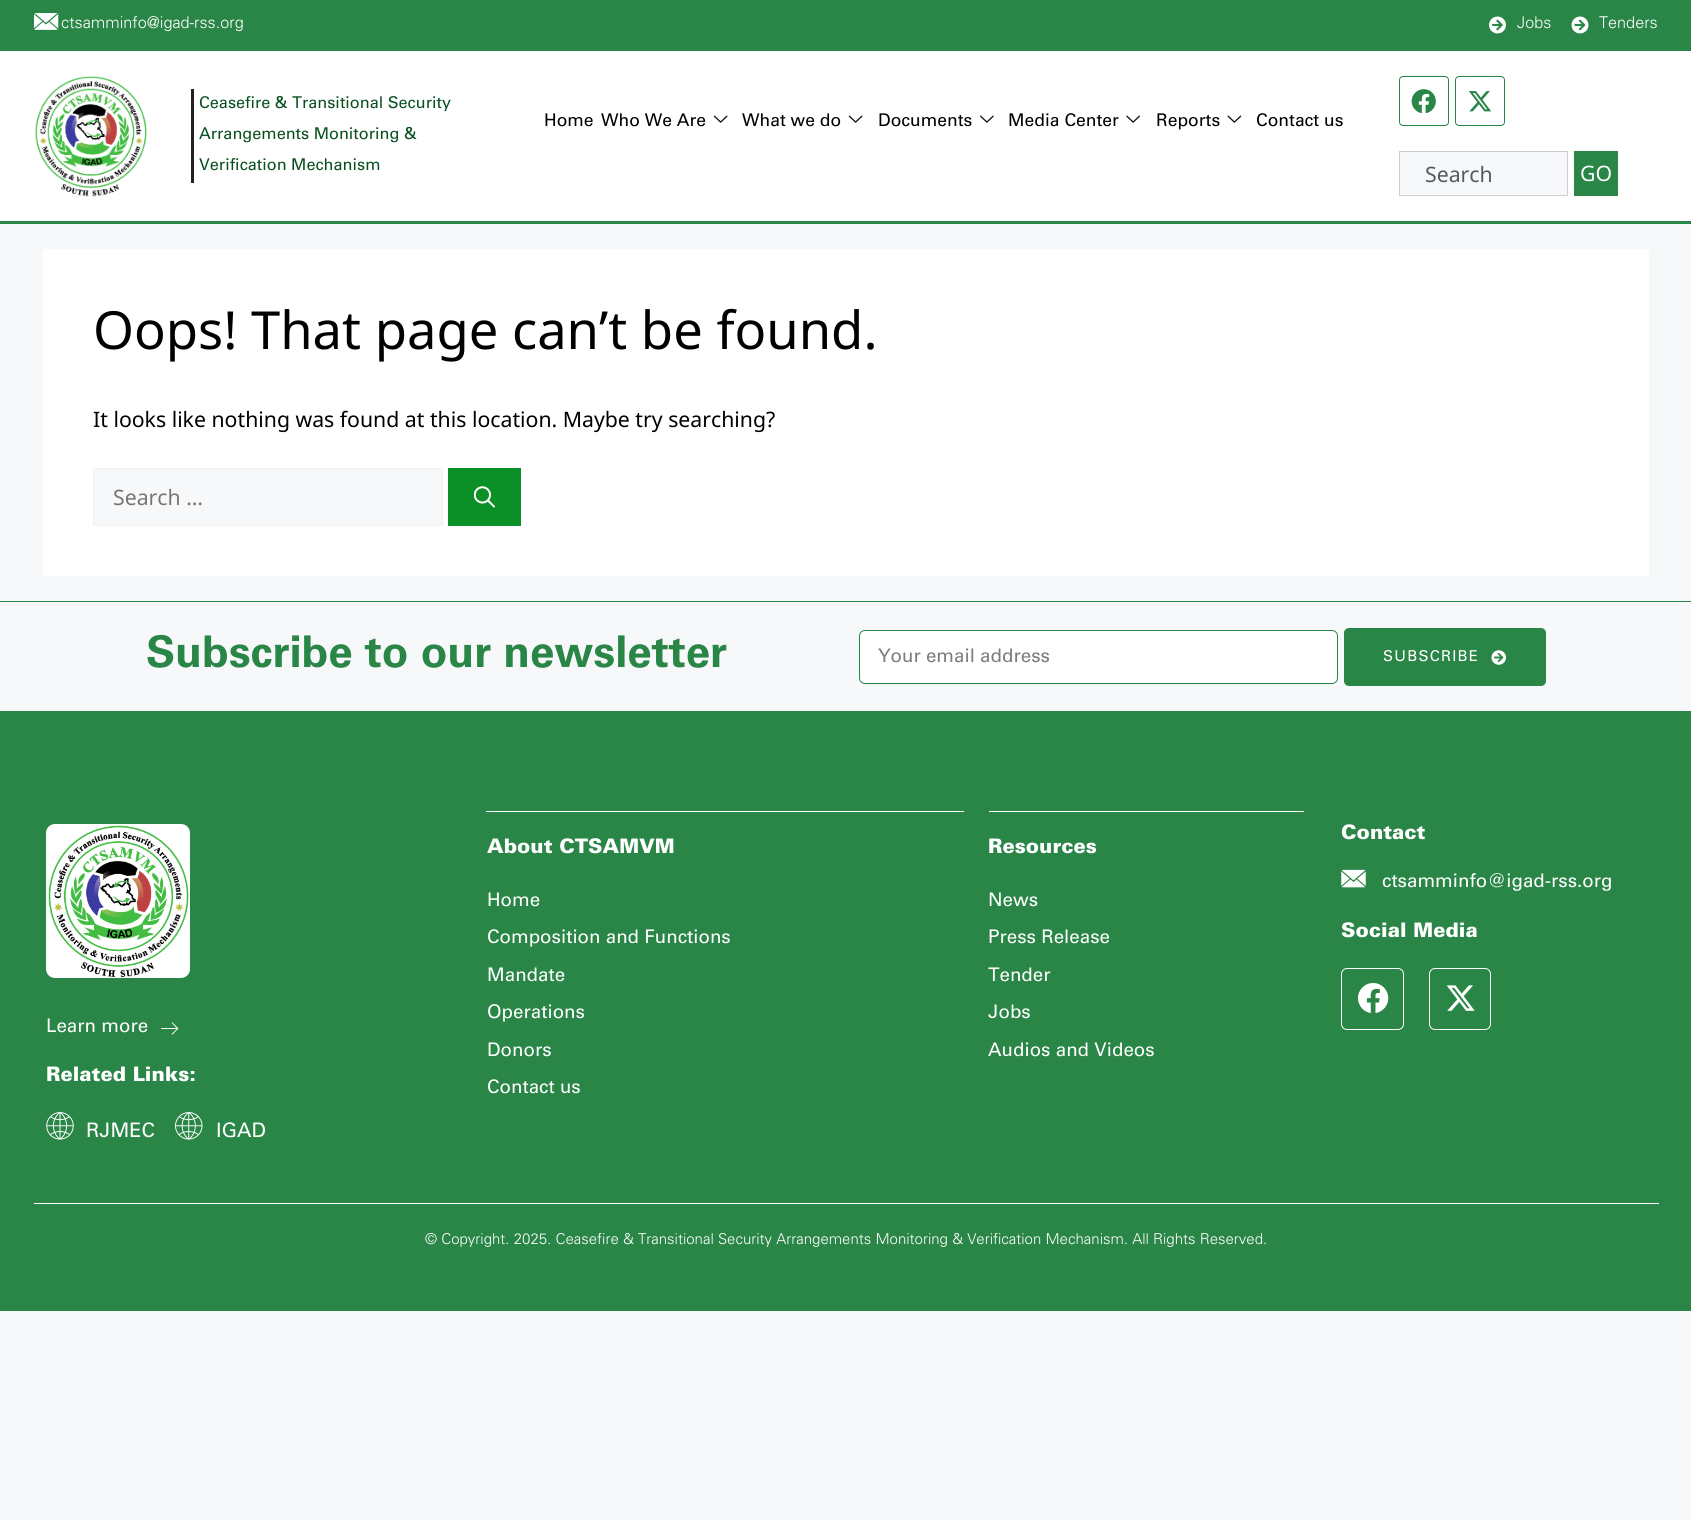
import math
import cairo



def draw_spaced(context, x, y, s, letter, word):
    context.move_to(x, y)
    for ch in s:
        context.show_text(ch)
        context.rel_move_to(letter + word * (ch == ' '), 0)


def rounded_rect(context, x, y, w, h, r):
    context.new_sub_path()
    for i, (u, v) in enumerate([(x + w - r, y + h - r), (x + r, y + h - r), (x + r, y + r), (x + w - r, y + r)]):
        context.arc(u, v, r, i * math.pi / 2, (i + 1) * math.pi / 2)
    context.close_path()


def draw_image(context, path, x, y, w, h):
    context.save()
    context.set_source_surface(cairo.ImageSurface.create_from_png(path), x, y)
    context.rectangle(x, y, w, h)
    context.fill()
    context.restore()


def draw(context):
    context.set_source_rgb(247 / 255, 248 / 255, 249 / 255)
    context.paint()
    context.set_source_rgb(42 / 255, 134 / 255, 71 / 255)
    context.rectangle(0, 0, 1691, 51)
    context.fill()
    draw_image(context, "images/1.png", 34, 13, 25, 17)
    draw_image(context, "images/2.png", 1489, 16, 17, 18)
    draw_image(context, "images/3.png", 1571, 16, 18, 18)
    context.set_source_rgb(1, 1, 1)
    context.rectangle(0, 51, 1691, 170)
    context.fill()
    context.set_source_rgb(42 / 255, 134 / 255, 71 / 255)
    context.rectangle(0, 221, 1691, 3)
    context.fill()
    draw_image(context, "images/4.png", 35, 76, 112, 121)
    context.set_source_rgb(34 / 255, 34 / 255, 34 / 255)
    context.rectangle(191, 89, 3, 94)
    context.fill()
    draw_image(context, "images/5.png", 713, 115, 15, 8)
    draw_image(context, "images/5.png", 848, 115, 15, 8)
    draw_image(context, "images/6.png", 980, 115, 14, 8)
    draw_image(context, "images/7.png", 1126, 115, 14, 8)
    draw_image(context, "images/8.png", 1227, 115, 15, 8)
    rounded_rect(context, 1399.5, 76.5, 49, 49, 3.5)
    context.set_source_rgb(42 / 255, 134 / 255, 71 / 255)
    context.set_line_width(1)
    context.stroke()
    draw_image(context, "images/9.png", 1411, 89, 25, 25)
    rounded_rect(context, 1455.5, 76.5, 49, 49, 3.5)
    context.stroke()
    draw_image(context, "images/10.png", 1468, 91, 24, 21)
    context.set_source_rgb(247 / 255, 248 / 255, 249 / 255)
    context.rectangle(1399.5, 151.5, 168, 44)
    context.fill_preserve()
    context.set_source_rgb(205 / 255, 205 / 255, 205 / 255)
    context.stroke()
    context.set_source_rgb(42 / 255, 134 / 255, 71 / 255)
    context.rectangle(1574, 151, 44, 45)
    context.fill()
    context.set_source_rgb(1, 1, 1)
    context.rectangle(43, 249, 1606, 327)
    context.fill()
    context.set_source_rgb(247 / 255, 248 / 255, 249 / 255)
    context.rectangle(93.5, 468.5, 349, 57)
    context.fill_preserve()
    context.set_source_rgb(240 / 255, 240 / 255, 240 / 255)
    context.stroke()
    context.set_source_rgb(11 / 255, 143 / 255, 39 / 255)
    context.rectangle(448, 468, 73, 58)
    context.fill()
    draw_image(context, "images/11.png", 474, 486, 21, 22)
    context.set_source_rgb(42 / 255, 134 / 255, 71 / 255)
    context.rectangle(0, 601, 1691, 1)
    context.fill()
    context.set_source_rgb(1, 1, 1)
    rounded_rect(context, 859.5, 630.5, 478, 53, 5.5)
    context.fill_preserve()
    context.set_source_rgb(42 / 255, 134 / 255, 71 / 255)
    context.stroke()
    rounded_rect(context, 1344, 628, 202, 58, 5)
    context.fill()
    draw_image(context, "images/12.png", 1491, 650, 15, 15)
    context.rectangle(0, 711, 1691, 600)
    context.fill()
    context.set_source_rgb(1, 1, 1)
    context.rectangle(34, 1203, 1625, 1)
    context.fill()
    context.rectangle(486, 811, 478, 1)
    context.fill()
    context.rectangle(989, 811, 315, 1)
    context.fill()
    draw_image(context, "images/13.png", 1341, 869, 25, 19)
    rounded_rect(context, 1341.5, 968.5, 62, 61, 5.5)
    context.stroke()
    draw_image(context, "images/14.png", 1358, 983, 31, 30)
    rounded_rect(context, 1429.5, 968.5, 61, 61, 5.5)
    context.stroke()
    draw_image(context, "images/15.png", 1446, 985, 29, 26)
    rounded_rect(context, 46, 824, 144, 154, 9)
    context.fill()
    draw_image(context, "images/16.png", 48, 825, 141, 153)
    draw_image(context, "images/17.png", 161, 1022, 18, 13)
    draw_image(context, "images/18.png", 46, 1112, 28, 28)
    draw_image(context, "images/19.png", 175, 1112, 28, 28)
    context.select_font_face("Univers Light")
    context.set_font_size(16.25)
    context.move_to(61, 28)
    context.show_text("ctsamminfo@igad-rss.org")
    context.move_to(1517, 28)
    context.show_text("Jobs")
    context.move_to(1599, 28)
    context.show_text("Tenders")
    context.select_font_face("Univers")
    context.set_source_rgb(9 / 255, 80 / 255, 31 / 255)
    context.move_to(199, 108)
    context.show_text("Ceasefire & Transitional Security")
    context.move_to(199, 139)
    context.show_text("Arrangements Monitoring &")
    context.move_to(199, 170)
    context.show_text("Verification Mechanism")
    context.set_font_size(17.5)
    context.set_source_rgb(0, 0, 0)
    context.move_to(544, 126)
    context.show_text("Home")
    context.move_to(601, 126)
    context.show_text("Who We Are")
    context.move_to(742, 126)
    context.show_text("What we do")
    context.move_to(878, 126)
    context.show_text("Documents")
    context.move_to(1008, 126)
    context.show_text("Media Center")
    context.move_to(1156, 126)
    context.show_text("Reports")
    context.move_to(1256, 126)
    context.show_text("Contact us")
    context.select_font_face("Noto Sans")
    context.set_font_size(21.25)
    context.set_source_rgb(81 / 255, 89 / 255, 98 / 255)
    context.move_to(1425, 182)
    context.show_text("Search")
    context.set_source_rgb(1, 1, 1)
    context.move_to(1580, 181)
    context.show_text("GO")
    context.set_font_size(52.5)
    context.set_source_rgb(0, 0, 0)
    context.move_to(93, 349)
    context.show_text("Oops! That page can’t be found.")
    context.set_font_size(21.25)
    context.move_to(93, 427)
    context.show_text("It looks like nothing was found at this location. Maybe try searching?")
    context.set_source_rgb(117 / 255, 117 / 255, 117 / 255)
    context.move_to(113, 505)
    context.show_text("Search …")
    context.select_font_face("Univers", cairo.FontSlant.NORMAL, cairo.FontWeight.BOLD)
    context.set_font_size(43.75)
    context.set_source_rgb(42 / 255, 134 / 255, 71 / 255)
    context.move_to(146, 667)
    context.show_text("Subscribe to our newsletter")
    context.select_font_face("Univers")
    context.set_font_size(18.75)
    context.set_source_rgb(124 / 255, 124 / 255, 124 / 255)
    context.move_to(878, 662)
    context.show_text("Your email address")
    context.set_font_size(15)
    context.set_source_rgb(1, 1, 1)
    draw_spaced(context, 1383, 661, "SUBSCRIBE", 1.25, 0)
    context.select_font_face("Univers Black")
    context.set_font_size(20)
    context.move_to(487, 853)
    context.show_text("About CTSAMVM")
    context.select_font_face("Univers")
    context.set_font_size(18.75)
    context.move_to(487, 906)
    context.show_text("Home")
    context.move_to(487, 943)
    context.show_text("Composition and Functions")
    context.move_to(487, 981)
    context.show_text("Mandate")
    context.move_to(487, 1018)
    context.show_text("Operations")
    context.move_to(487, 1056)
    context.show_text("Donors")
    context.move_to(487, 1093)
    context.show_text("Contact us")
    context.select_font_face("Univers Black")
    context.set_font_size(20)
    context.move_to(988, 853)
    context.show_text("Resources")
    context.select_font_face("Univers")
    context.set_font_size(18.75)
    context.move_to(988, 906)
    context.show_text("News")
    context.move_to(988, 943)
    context.show_text("Press Release")
    context.move_to(988, 981)
    context.show_text("Tender")
    context.move_to(988, 1018)
    context.show_text("Jobs")
    context.move_to(988, 1056)
    context.show_text("Audios and Videos")
    context.select_font_face("Univers Black")
    context.set_font_size(20)
    context.move_to(1341, 839)
    context.show_text("Contact")
    context.select_font_face("Univers")
    context.set_font_size(18.75)
    context.move_to(1382, 887)
    context.show_text("ctsamminfo@igad-rss.org")
    context.select_font_face("Univers Black")
    context.set_font_size(20)
    context.move_to(1341, 937)
    context.show_text("Social Media")
    context.select_font_face("Univers")
    context.set_font_size(18.75)
    context.move_to(46, 1032)
    context.show_text("Learn more")
    context.select_font_face("Univers Black")
    context.set_font_size(20)
    context.move_to(46, 1081)
    context.show_text("Related Links:")
    context.select_font_face("Univers")
    context.move_to(86, 1137)
    context.show_text("RJMEC")
    context.move_to(216, 1137)
    context.show_text("IGAD")
    context.select_font_face("Univers Light")
    context.set_font_size(15)
    context.move_to(425, 1244)
    context.show_text("© Copyright. 2025. Ceasefire & Transitional Security Arrangements Monitoring & Verification Mechanism. All Rights Reserved.")


surface = cairo.ImageSurface(cairo.Format.RGB24, 1691, 1520)
context = cairo.Context(surface)
options = cairo.FontOptions()
options.set_hint_metrics(cairo.HintMetrics.OFF)
options.set_hint_style(cairo.HintStyle.NONE)
context.set_font_options(options)
context.set_miter_limit(4)
draw(context)
surface.write_to_png("out.png")
